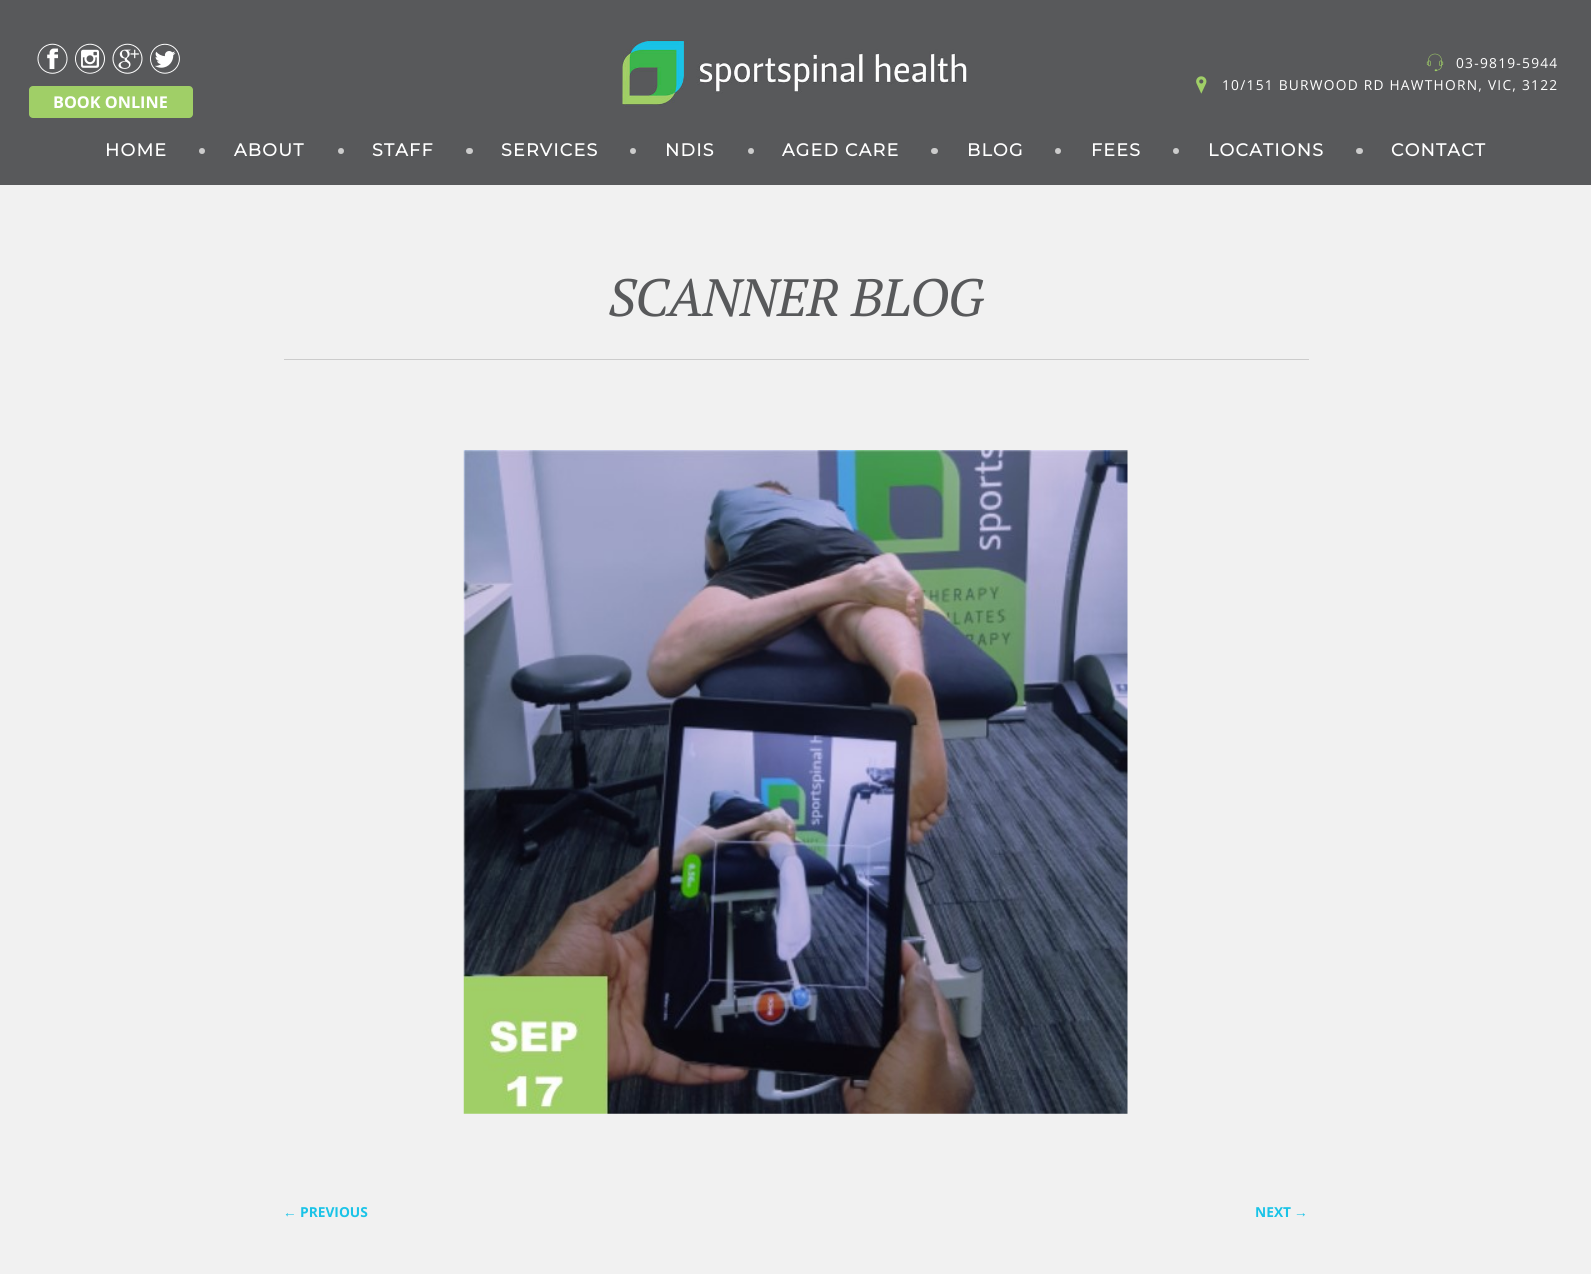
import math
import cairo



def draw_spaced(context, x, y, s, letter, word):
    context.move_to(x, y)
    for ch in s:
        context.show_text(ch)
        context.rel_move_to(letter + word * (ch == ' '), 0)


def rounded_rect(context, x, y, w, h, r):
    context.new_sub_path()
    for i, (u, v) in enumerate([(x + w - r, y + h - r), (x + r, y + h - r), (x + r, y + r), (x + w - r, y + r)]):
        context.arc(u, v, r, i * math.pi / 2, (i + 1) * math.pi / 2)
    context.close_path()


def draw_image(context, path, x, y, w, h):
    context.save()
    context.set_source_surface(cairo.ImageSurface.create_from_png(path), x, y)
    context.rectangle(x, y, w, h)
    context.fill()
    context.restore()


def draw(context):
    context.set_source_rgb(241 / 255, 241 / 255, 241 / 255)
    context.paint()
    context.set_source_rgb(88 / 255, 89 / 255, 91 / 255)
    context.rectangle(0, 0, 1591, 185)
    context.fill()
    draw_image(context, "images/1.png", 622, 40, 345, 67)
    draw_image(context, "images/2.png", 1426, 53, 18, 19)
    draw_image(context, "images/3.png", 1196, 76, 11, 18)
    draw_image(context, "images/4.png", 37, 43, 31, 31)
    draw_image(context, "images/5.png", 75, 43, 30, 31)
    draw_image(context, "images/6.png", 112, 43, 31, 31)
    draw_image(context, "images/7.png", 150, 43, 30, 31)
    context.set_source_rgb(160 / 255, 207 / 255, 103 / 255)
    rounded_rect(context, 29, 86, 164, 32, 4)
    context.fill()
    context.set_source_rgb(204 / 255, 204 / 255, 204 / 255)
    context.arc(202, 151, 3, 0, 2 * math.pi)
    context.fill()
    context.arc(341, 151, 3, 0, 2 * math.pi)
    context.fill()
    rounded_rect(context, 466, 148, 7, 6, 3)
    context.fill()
    context.arc(633, 151, 3, 0, 2 * math.pi)
    context.fill()
    context.arc(751, 151, 3, 0, 2 * math.pi)
    context.fill()
    rounded_rect(context, 931, 148, 7, 6, 3)
    context.fill()
    context.arc(1058, 151, 3, 0, 2 * math.pi)
    context.fill()
    context.arc(1176, 151, 3, 0, 2 * math.pi)
    context.fill()
    rounded_rect(context, 1356, 148, 7, 6, 3)
    context.fill()
    context.rectangle(284, 359, 1025, 1)
    context.fill()
    draw_image(context, "images/8.png", 463, 450, 665, 664)
    context.select_font_face("Open Sans")
    context.set_font_size(13.75)
    context.set_source_rgb(1, 1, 1)
    draw_spaced(context, 1456, 68, "03-9819-5944", 1.25, 0)
    draw_spaced(context, 1222, 90, "10/151 BURWOOD RD HAWTHORN, VIC, 3122", 1.25, 0)
    context.select_font_face("Open Sans", cairo.FontSlant.NORMAL, cairo.FontWeight.BOLD)
    context.set_font_size(16.25)
    context.move_to(53, 108)
    context.show_text("BOOK ONLINE")
    context.select_font_face("Montserrat", cairo.FontSlant.NORMAL, cairo.FontWeight.BOLD)
    context.set_font_size(17.5)
    draw_spaced(context, 105, 156, "HOME", 1.25, 0)
    draw_spaced(context, 234, 156, "ABOUT", 1.25, 0)
    draw_spaced(context, 372, 156, "STAFF", 1.25, 0)
    draw_spaced(context, 501, 156, "SERVICES", 1.25, 0)
    draw_spaced(context, 665, 156, "NDIS", 1.25, 0)
    draw_spaced(context, 782, 156, "AGED CARE", 1.25, 0)
    draw_spaced(context, 967, 156, "BLOG", 1.25, 0)
    draw_spaced(context, 1091, 156, "FEES", 1.25, 0)
    draw_spaced(context, 1208, 156, "LOCATIONS", 1.25, 0)
    draw_spaced(context, 1391, 156, "CONTACT", 1.25, 0)
    context.select_font_face("PT Serif", cairo.FontSlant.ITALIC)
    context.set_font_size(52.5)
    context.set_source_rgb(88 / 255, 89 / 255, 91 / 255)
    draw_spaced(context, 608, 316, "SCANNER BLOG", -0.6, 0)
    context.select_font_face("Liberation Serif", cairo.FontSlant.NORMAL, cairo.FontWeight.BOLD)
    context.set_font_size(13.75)
    context.set_source_rgb(25 / 255, 195 / 255, 231 / 255)
    context.move_to(283, 1217)
    context.show_text("←")
    context.select_font_face("Open Sans", cairo.FontSlant.NORMAL, cairo.FontWeight.BOLD)
    context.move_to(300, 1217)
    context.show_text("PREVIOUS")
    context.move_to(1255, 1217)
    context.show_text("NEXT")
    context.select_font_face("Liberation Serif", cairo.FontSlant.NORMAL, cairo.FontWeight.BOLD)
    context.move_to(1294, 1217)
    context.show_text("→")


surface = cairo.ImageSurface(cairo.Format.RGB24, 1591, 1274)
context = cairo.Context(surface)
options = cairo.FontOptions()
options.set_hint_metrics(cairo.HintMetrics.OFF)
options.set_hint_style(cairo.HintStyle.NONE)
context.set_font_options(options)
context.set_miter_limit(4)
draw(context)
surface.write_to_png("out.png")
